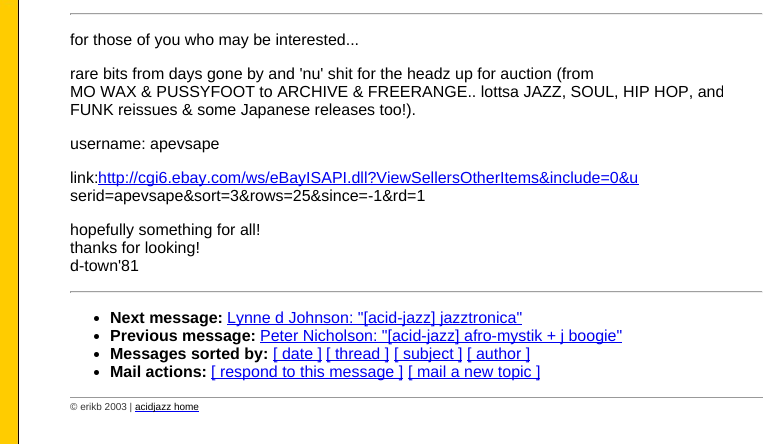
import math
import cairo



def draw_image(context, path, x, y, w, h):
    context.save()
    context.set_source_surface(cairo.ImageSurface.create_from_png(path), x, y)
    context.rectangle(x, y, w, h)
    context.fill()
    context.restore()


def draw(context):
    context.set_source_rgb(1, 1, 1)
    context.paint()
    draw_image(context, "images/1.png", 0, 0, 19, 444)
    context.set_source_rgb(159 / 255, 159 / 255, 159 / 255)
    context.rectangle(70, 13, 693, 1)
    context.fill()
    context.set_source_rgb(238 / 255, 238 / 255, 238 / 255)
    context.rectangle(762, 13, 1, 2)
    context.fill()
    context.rectangle(70, 14, 693, 1)
    context.fill()
    context.set_source_rgb(159 / 255, 159 / 255, 159 / 255)
    context.rectangle(70, 13, 1, 2)
    context.fill()
    context.set_source_rgb(0, 0, 238 / 255)
    context.rectangle(98, 184, 541, 1)
    context.fill()
    context.set_source_rgb(159 / 255, 159 / 255, 159 / 255)
    context.rectangle(70, 291, 693, 1)
    context.fill()
    context.set_source_rgb(238 / 255, 238 / 255, 238 / 255)
    context.rectangle(762, 291, 1, 2)
    context.fill()
    context.rectangle(70, 292, 693, 1)
    context.fill()
    context.set_source_rgb(159 / 255, 159 / 255, 159 / 255)
    context.rectangle(70, 291, 1, 2)
    context.fill()
    context.set_source_rgb(0, 0, 0)
    context.arc(96.5, 318.5, 2.5, 0, 2 * math.pi)
    context.fill()
    context.set_source_rgb(0, 0, 238 / 255)
    context.rectangle(227, 324, 295, 1)
    context.fill()
    context.set_source_rgb(0, 0, 0)
    context.arc(96.5, 336.5, 2.5, 0, 2 * math.pi)
    context.fill()
    context.set_source_rgb(0, 0, 238 / 255)
    context.rectangle(260, 342, 362, 1)
    context.fill()
    context.set_source_rgb(0, 0, 0)
    context.arc(96.5, 354.5, 2.5, 0, 2 * math.pi)
    context.fill()
    context.set_source_rgb(0, 0, 238 / 255)
    context.rectangle(273, 360, 49, 1)
    context.fill()
    context.rectangle(326, 360, 63, 1)
    context.fill()
    context.rectangle(394, 360, 68, 1)
    context.fill()
    context.rectangle(467, 360, 63, 1)
    context.fill()
    context.set_source_rgb(0, 0, 0)
    context.arc(96.5, 372.5, 2.5, 0, 2 * math.pi)
    context.fill()
    context.set_source_rgb(0, 0, 238 / 255)
    context.rectangle(211, 378, 192, 1)
    context.fill()
    context.rectangle(408, 378, 132, 1)
    context.fill()
    context.set_source_rgb(153 / 255, 153 / 255, 153 / 255)
    context.rectangle(70, 397, 693, 1)
    context.fill()
    context.set_source_rgb(0, 0, 238 / 255)
    context.rectangle(135, 411, 64, 1)
    context.fill()
    context.select_font_face("Liberation Sans")
    context.set_font_size(16)
    context.set_source_rgb(0, 0, 0)
    context.move_to(70, 45)
    context.show_text("for those of you who may be interested...")
    context.move_to(70, 79)
    context.show_text("rare bits from days gone by and 'nu' shit for the headz up for auction (from")
    context.move_to(70, 97)
    context.show_text("MO WAX & PUSSYFOOT to ARCHIVE & FREERANGE.. lottsa JAZZ, SOUL, HIP HOP, and")
    context.move_to(70, 115)
    context.show_text("FUNK reissues & some Japanese releases too!).")
    context.move_to(70, 149)
    context.show_text("username: apevsape")
    context.move_to(70, 183)
    context.show_text("link:")
    context.set_source_rgb(0, 0, 238 / 255)
    context.move_to(98, 183)
    context.show_text("http://cgi6.ebay.com/ws/eBayISAPI.dll?ViewSellersOtherItems&include=0&u")
    context.set_source_rgb(0, 0, 0)
    context.move_to(70, 201)
    context.show_text("serid=apevsape&sort=3&rows=25&since=-1&rd=1")
    context.move_to(70, 235)
    context.show_text("hopefully something for all!")
    context.move_to(70, 253)
    context.show_text("thanks for looking!")
    context.move_to(70, 271)
    context.show_text("d-town'81")
    context.select_font_face("Liberation Sans", cairo.FontSlant.NORMAL, cairo.FontWeight.BOLD)
    context.move_to(110, 323)
    context.show_text("Next message:")
    context.select_font_face("Liberation Sans")
    context.set_source_rgb(0, 0, 238 / 255)
    context.move_to(227, 323)
    context.show_text("Lynne d Johnson: \"[acid-jazz] jazztronica\"")
    context.select_font_face("Liberation Sans", cairo.FontSlant.NORMAL, cairo.FontWeight.BOLD)
    context.set_source_rgb(0, 0, 0)
    context.move_to(110, 341)
    context.show_text("Previous message:")
    context.select_font_face("Liberation Sans")
    context.set_source_rgb(0, 0, 238 / 255)
    context.move_to(260, 341)
    context.show_text("Peter Nicholson: \"[acid-jazz] afro-mystik + j boogie\"")
    context.select_font_face("Liberation Sans", cairo.FontSlant.NORMAL, cairo.FontWeight.BOLD)
    context.set_source_rgb(0, 0, 0)
    context.move_to(110, 359)
    context.show_text("Messages sorted by:")
    context.select_font_face("Liberation Sans")
    context.set_source_rgb(0, 0, 238 / 255)
    context.move_to(273, 359)
    context.show_text("[ date ]")
    context.move_to(326, 359)
    context.show_text("[ thread ]")
    context.move_to(394, 359)
    context.show_text("[ subject ]")
    context.move_to(467, 359)
    context.show_text("[ author ]")
    context.select_font_face("Liberation Sans", cairo.FontSlant.NORMAL, cairo.FontWeight.BOLD)
    context.set_source_rgb(0, 0, 0)
    context.move_to(110, 377)
    context.show_text("Mail actions:")
    context.select_font_face("Liberation Sans")
    context.set_source_rgb(0, 0, 238 / 255)
    context.move_to(211, 377)
    context.show_text("[ respond to this message ]")
    context.move_to(408, 377)
    context.show_text("[ mail a new topic ]")
    context.set_font_size(10)
    context.set_source_rgb(51 / 255, 51 / 255, 51 / 255)
    context.move_to(70, 410)
    context.show_text("© erikb 2003 |")
    context.set_source_rgb(0, 0, 0)
    context.move_to(135, 410)
    context.show_text("acidjazz home")


surface = cairo.ImageSurface(cairo.Format.RGB24, 779, 444)
context = cairo.Context(surface)
options = cairo.FontOptions()
options.set_hint_metrics(cairo.HintMetrics.OFF)
options.set_hint_style(cairo.HintStyle.NONE)
context.set_font_options(options)
context.set_miter_limit(4)
draw(context)
surface.write_to_png("out.png")
